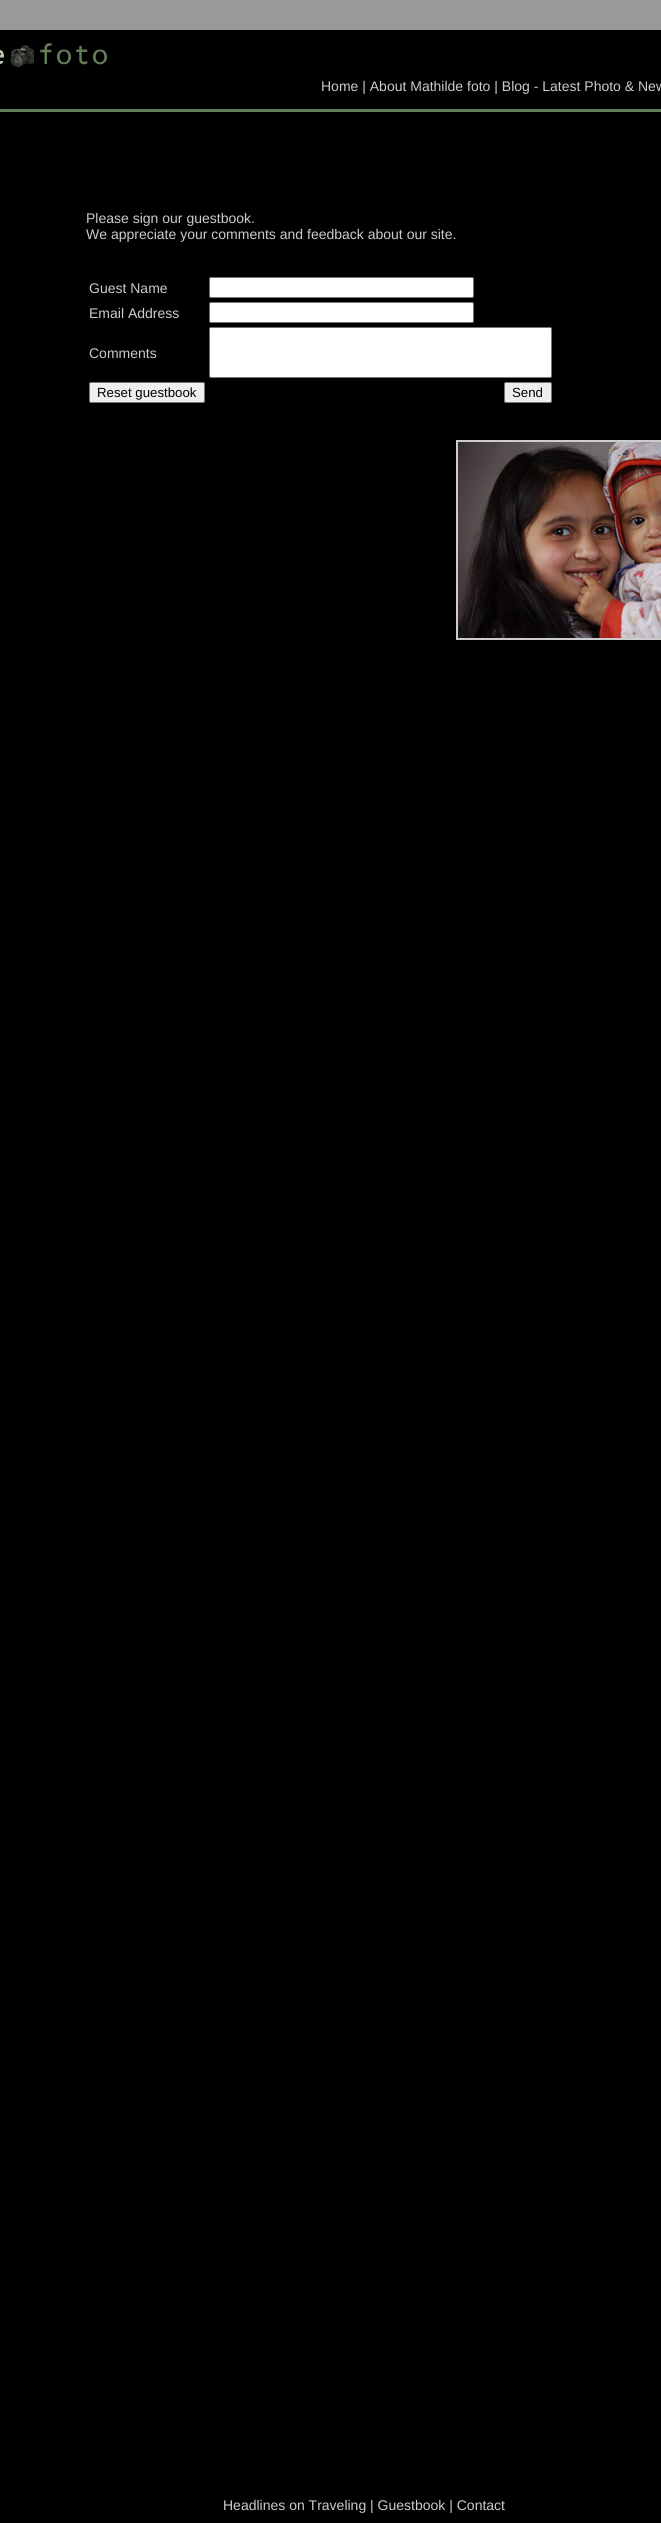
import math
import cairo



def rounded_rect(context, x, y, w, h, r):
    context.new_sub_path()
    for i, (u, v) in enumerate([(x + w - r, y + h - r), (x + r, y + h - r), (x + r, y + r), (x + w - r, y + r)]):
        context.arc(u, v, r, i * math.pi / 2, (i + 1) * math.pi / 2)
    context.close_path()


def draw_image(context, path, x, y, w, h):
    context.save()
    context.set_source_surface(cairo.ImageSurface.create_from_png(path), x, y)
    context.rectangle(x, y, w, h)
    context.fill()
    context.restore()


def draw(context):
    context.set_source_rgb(153 / 255, 153 / 255, 153 / 255)
    context.paint()
    context.set_source_rgb(0, 0, 0)
    context.rectangle(0, 30, 661, 2493)
    context.fill()
    draw_image(context, "images/1.png", 0, 43, 107, 24)
    context.set_source_rgb(98 / 255, 124 / 255, 87 / 255)
    context.rectangle(0, 109, 661, 3)
    context.fill()
    context.set_source_rgb(1, 1, 1)
    rounded_rect(context, 209.5, 277.5, 264, 20, 1.5)
    context.fill_preserve()
    context.set_source_rgb(118 / 255, 118 / 255, 118 / 255)
    context.set_line_width(1)
    context.stroke()
    context.set_source_rgb(1, 1, 1)
    rounded_rect(context, 209.5, 302.5, 264, 20, 1.5)
    context.fill_preserve()
    context.set_source_rgb(118 / 255, 118 / 255, 118 / 255)
    context.stroke()
    context.set_source_rgb(1, 1, 1)
    rounded_rect(context, 209.5, 327.5, 342, 50, 1.5)
    context.fill_preserve()
    context.set_source_rgb(118 / 255, 118 / 255, 118 / 255)
    context.stroke()
    context.set_source_rgb(239 / 255, 239 / 255, 239 / 255)
    rounded_rect(context, 89.5, 382.5, 115, 20, 1.5)
    context.fill_preserve()
    context.set_source_rgb(118 / 255, 118 / 255, 118 / 255)
    context.stroke()
    context.set_source_rgb(239 / 255, 239 / 255, 239 / 255)
    rounded_rect(context, 504.5, 382.5, 47, 20, 1.5)
    context.fill_preserve()
    context.set_source_rgb(118 / 255, 118 / 255, 118 / 255)
    context.stroke()
    draw_image(context, "images/2.png", 456, 440, 205, 200)
    context.select_font_face("Liberation Sans")
    context.set_font_size(14)
    context.set_source_rgb(204 / 255, 204 / 255, 204 / 255)
    context.move_to(321, 91)
    context.show_text("Home | About Mathilde foto | Blog - Latest Photo & New")
    context.move_to(86, 223)
    context.show_text("Please sign our guestbook.")
    context.move_to(86, 239)
    context.show_text("We appreciate your comments and feedback about our site.")
    context.move_to(89, 293)
    context.show_text("Guest Name")
    context.move_to(89, 318)
    context.show_text("Email Address")
    context.move_to(89, 358)
    context.show_text("Comments")
    context.set_font_size(13.25)
    context.set_source_rgb(0, 0, 0)
    context.move_to(97, 397)
    context.show_text("Reset guestbook")
    context.move_to(512, 397)
    context.show_text("Send")
    context.set_font_size(14)
    context.set_source_rgb(204 / 255, 204 / 255, 204 / 255)
    context.move_to(223, 2510)
    context.show_text("Headlines on Traveling | Guestbook | Contact")


surface = cairo.ImageSurface(cairo.Format.RGB24, 661, 2523)
context = cairo.Context(surface)
options = cairo.FontOptions()
options.set_hint_metrics(cairo.HintMetrics.OFF)
options.set_hint_style(cairo.HintStyle.NONE)
context.set_font_options(options)
context.set_miter_limit(4)
draw(context)
surface.write_to_png("out.png")
